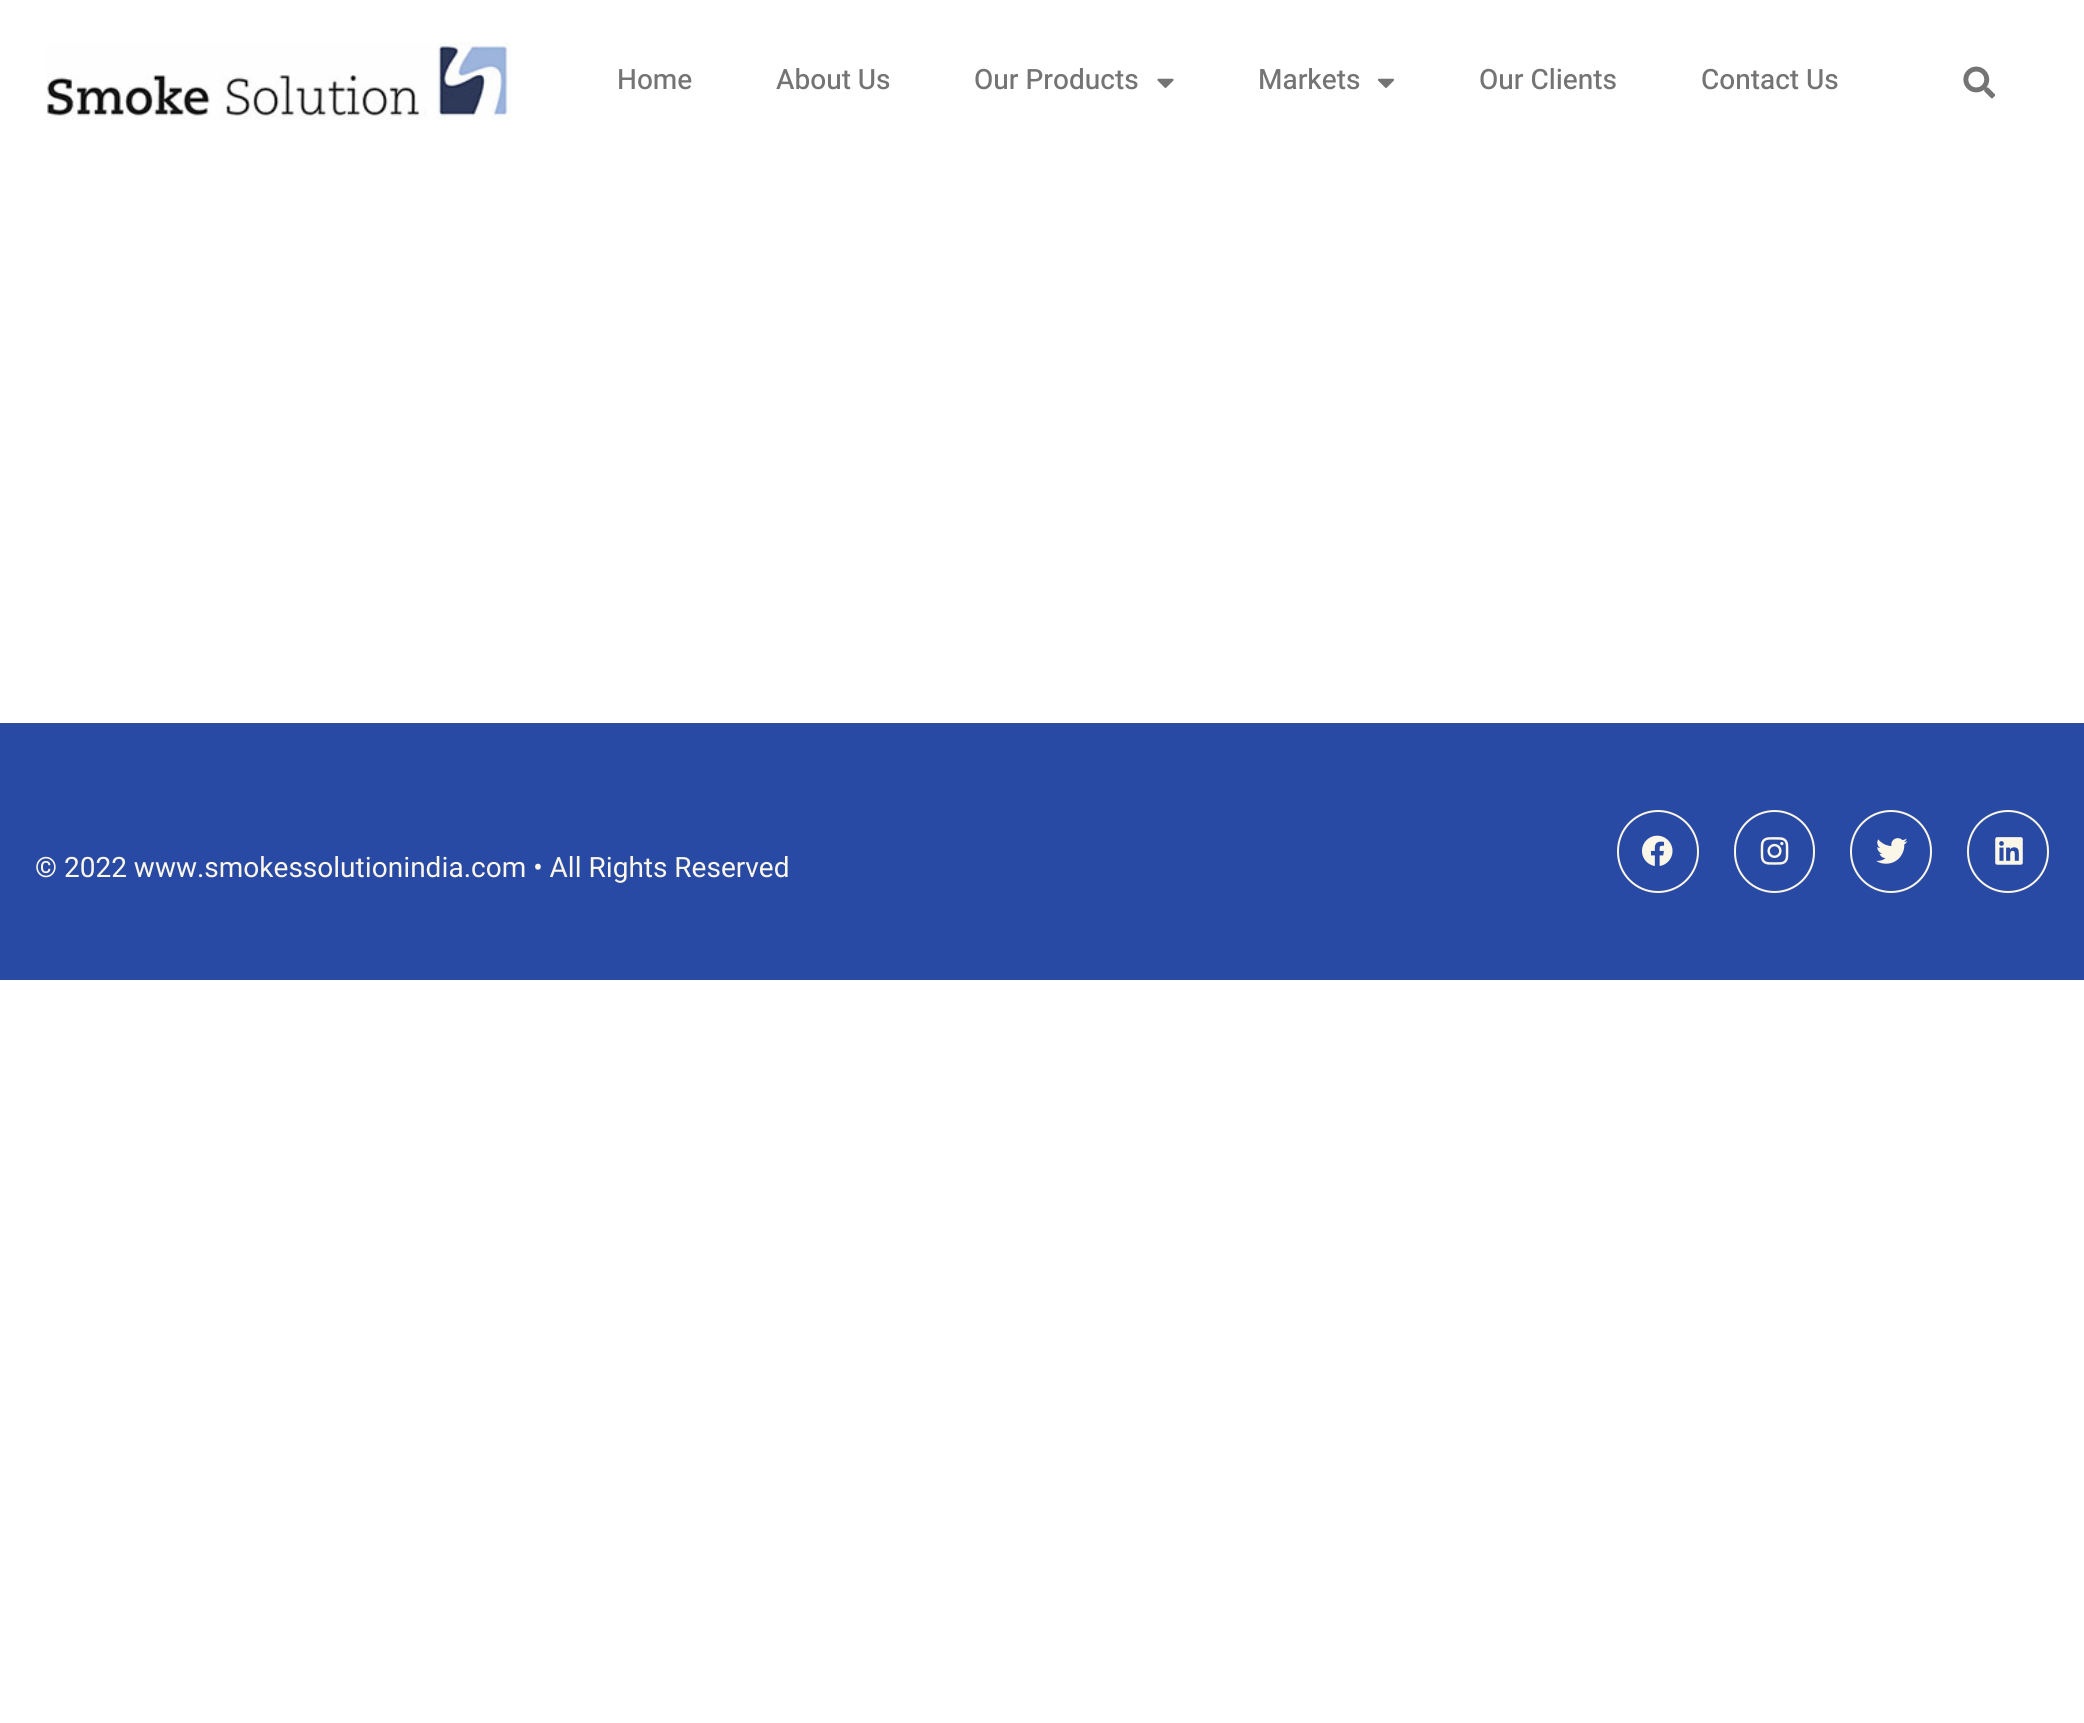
import math
import cairo



def rounded_rect(context, x, y, w, h, r):
    context.new_sub_path()
    for i, (u, v) in enumerate([(x + w - r, y + h - r), (x + r, y + h - r), (x + r, y + r), (x + w - r, y + r)]):
        context.arc(u, v, r, i * math.pi / 2, (i + 1) * math.pi / 2)
    context.close_path()


def draw_image(context, path, x, y, w, h):
    context.save()
    context.set_source_surface(cairo.ImageSurface.create_from_png(path), x, y)
    context.rectangle(x, y, w, h)
    context.fill()
    context.restore()


def draw(context):
    context.set_source_rgb(1, 1, 1)
    context.paint()
    draw_image(context, "images/1.png", 46, 42, 465, 78)
    draw_image(context, "images/2.png", 1157, 78, 17, 10)
    draw_image(context, "images/3.png", 1377, 78, 18, 10)
    draw_image(context, "images/4.png", 1963, 66, 33, 33)
    context.set_source_rgb(41 / 255, 74 / 255, 164 / 255)
    context.rectangle(0, 723, 2084, 257)
    context.fill()
    rounded_rect(context, 1618, 811, 80, 81, 40)
    context.set_source_rgb(250 / 255, 246 / 255, 232 / 255)
    context.stroke()
    draw_image(context, "images/5.png", 1642, 835, 31, 31)
    rounded_rect(context, 1735, 811, 79, 81, 39.5)
    context.stroke()
    draw_image(context, "images/6.png", 1760, 837, 29, 28)
    rounded_rect(context, 1851, 811, 80, 81, 40)
    context.stroke()
    draw_image(context, "images/7.png", 1876, 838, 32, 26)
    rounded_rect(context, 1968, 811, 80, 81, 40)
    context.stroke()
    draw_image(context, "images/8.png", 1995, 837, 28, 28)
    context.select_font_face("Heebo Medium")
    context.set_font_size(28)
    context.set_source_rgb(116 / 255, 116 / 255, 116 / 255)
    context.move_to(617, 89)
    context.show_text("Home")
    context.move_to(776, 89)
    context.show_text("About Us")
    context.move_to(974, 89)
    context.show_text("Our Products")
    context.move_to(1258, 89)
    context.show_text("Markets")
    context.move_to(1479, 89)
    context.show_text("Our Clients")
    context.move_to(1701, 89)
    context.show_text("Contact Us")
    context.select_font_face("Heebo")
    context.set_source_rgb(250 / 255, 246 / 255, 232 / 255)
    context.move_to(35, 877)
    context.show_text("© 2022 www.smokessolutionindia.com • All Rights Reserved")


surface = cairo.ImageSurface(cairo.Format.RGB24, 2084, 1723)
context = cairo.Context(surface)
options = cairo.FontOptions()
options.set_hint_metrics(cairo.HintMetrics.OFF)
options.set_hint_style(cairo.HintStyle.NONE)
context.set_font_options(options)
context.set_miter_limit(4)
draw(context)
surface.write_to_png("out.png")
